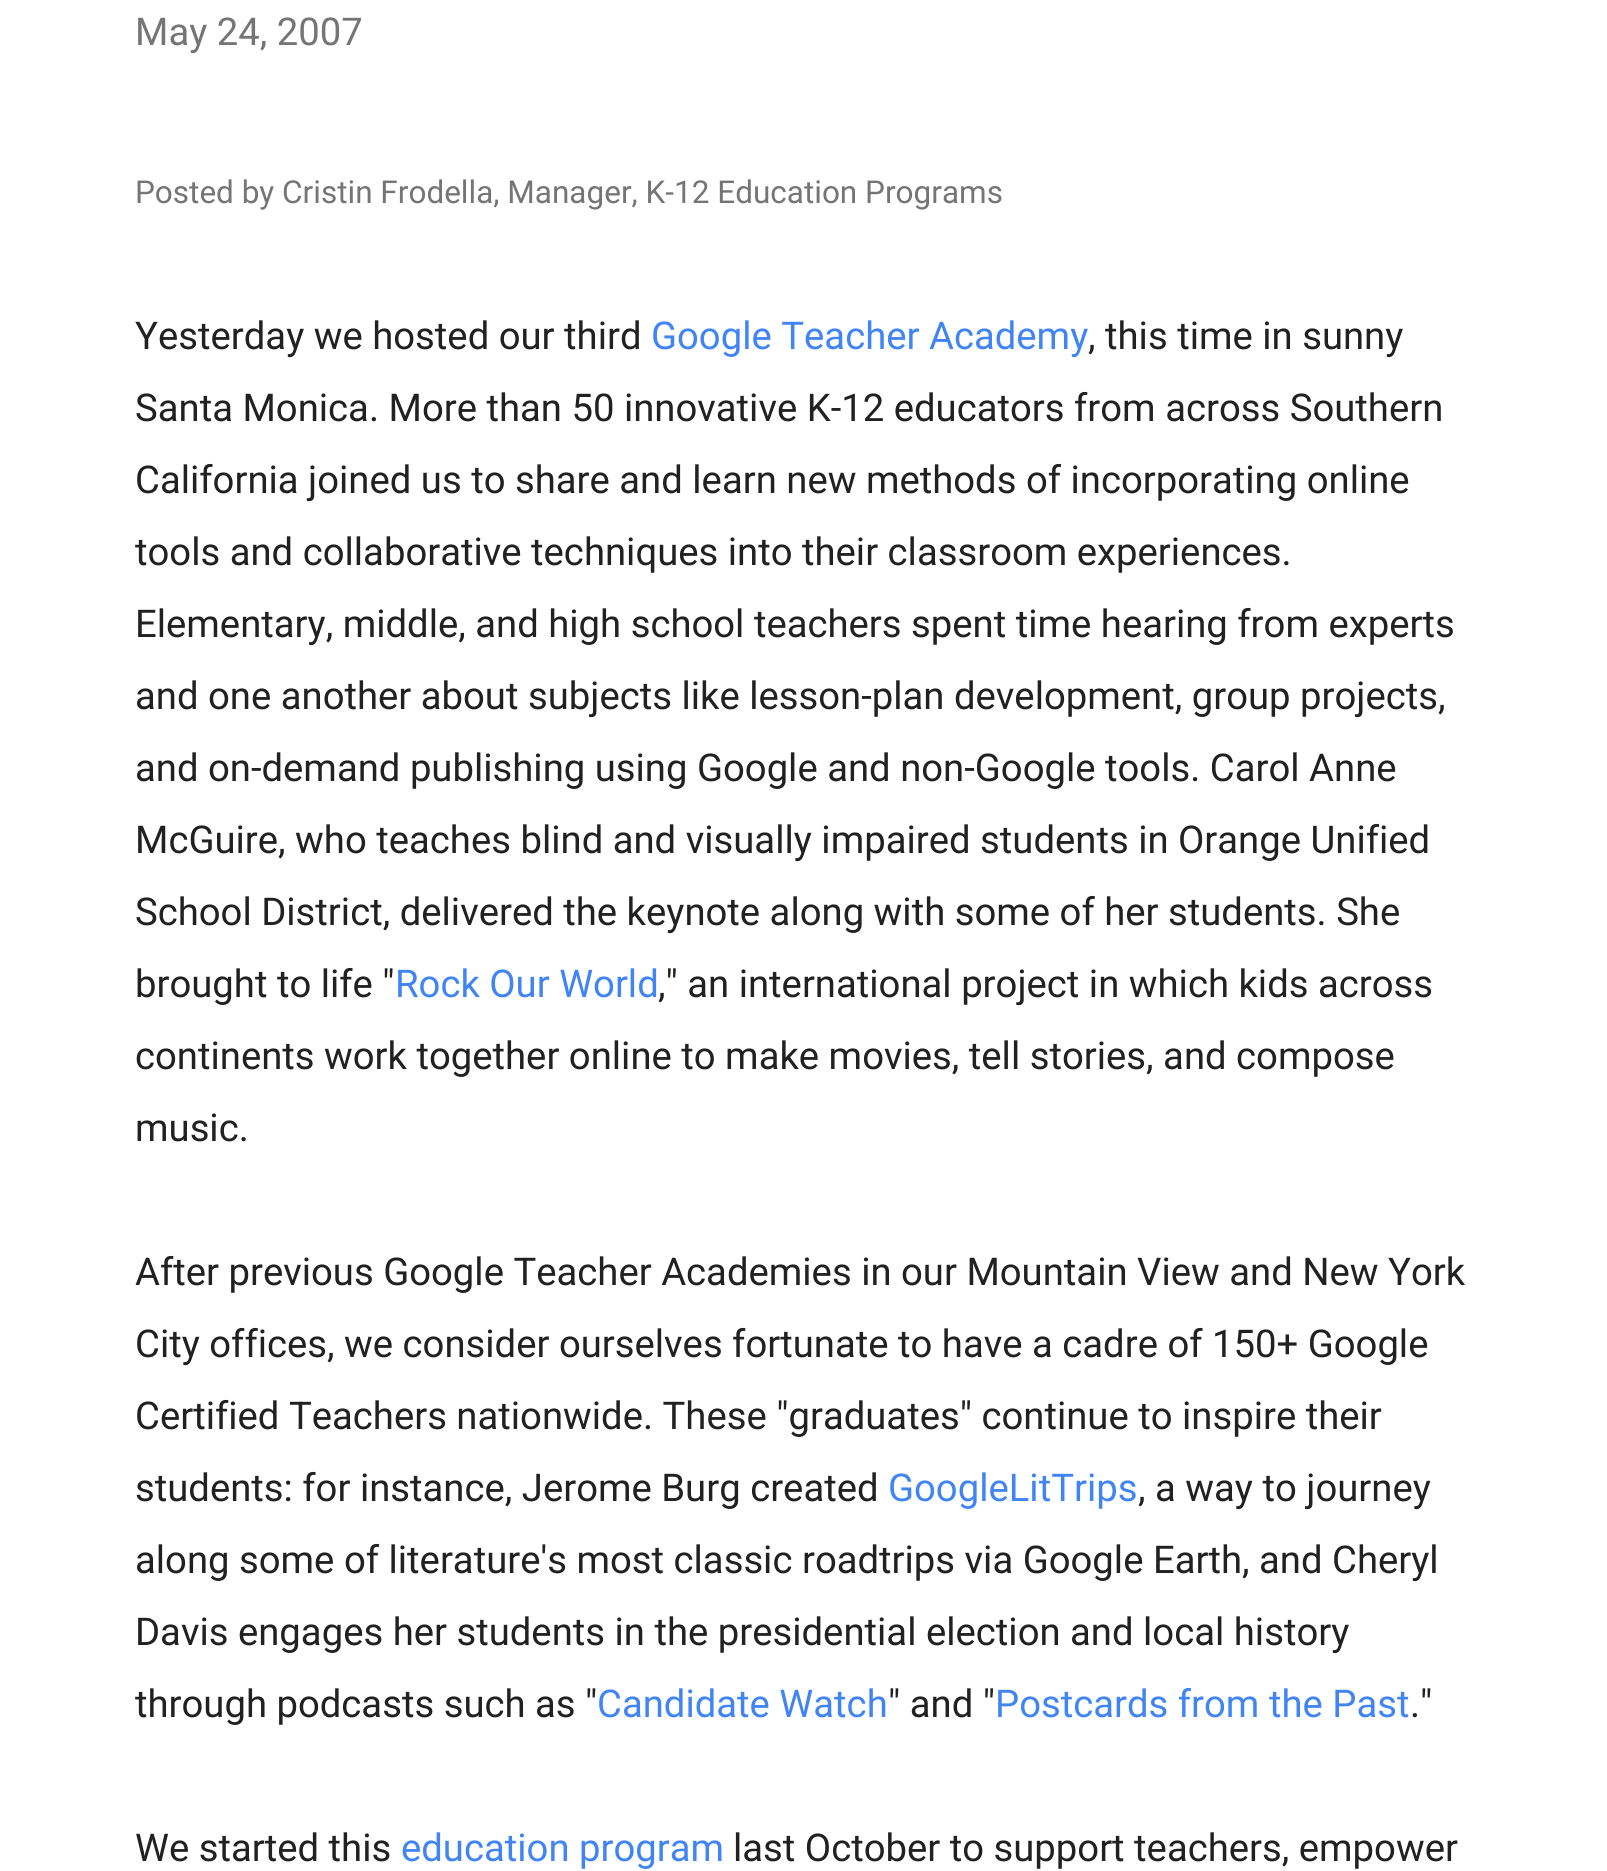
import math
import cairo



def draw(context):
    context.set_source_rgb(1, 1, 1)
    context.paint()
    context.select_font_face("Roboto")
    context.set_font_size(38.25)
    context.set_source_rgb(117 / 255, 117 / 255, 117 / 255)
    context.move_to(135, 45)
    context.show_text("May 24, 2007")
    context.set_font_size(31.5)
    context.move_to(135, 203)
    context.show_text("Posted by Cristin Frodella, Manager, K-12 Education Programs")
    context.set_font_size(38.25)
    context.set_source_rgb(33 / 255, 33 / 255, 33 / 255)
    context.move_to(135, 349)
    context.show_text("Yesterday we hosted our third")
    context.set_source_rgb(65 / 255, 132 / 255, 243 / 255)
    context.move_to(651, 349)
    context.show_text("Google Teacher Academy")
    context.set_source_rgb(33 / 255, 33 / 255, 33 / 255)
    context.move_to(1088, 349)
    context.show_text(", this time in sunny")
    context.move_to(135, 421)
    context.show_text("Santa Monica. More than 50 innovative K-12 educators from across Southern")
    context.move_to(135, 493)
    context.show_text("California joined us to share and learn new methods of incorporating online")
    context.move_to(135, 565)
    context.show_text("tools and collaborative techniques into their classroom experiences.")
    context.move_to(135, 637)
    context.show_text("Elementary, middle, and high school teachers spent time hearing from experts")
    context.move_to(135, 709)
    context.show_text("and one another about subjects like lesson-plan development, group projects,")
    context.move_to(135, 781)
    context.show_text("and on-demand publishing using Google and non-Google tools. Carol Anne")
    context.move_to(135, 853)
    context.show_text("McGuire, who teaches blind and visually impaired students in Orange Unified")
    context.move_to(135, 925)
    context.show_text("School District, delivered the keynote along with some of her students. She")
    context.move_to(135, 997)
    context.show_text("brought to life \"")
    context.set_source_rgb(65 / 255, 132 / 255, 243 / 255)
    context.move_to(395, 997)
    context.show_text("Rock Our World")
    context.set_source_rgb(33 / 255, 33 / 255, 33 / 255)
    context.move_to(658, 997)
    context.show_text(",\" an international project in which kids across")
    context.move_to(135, 1069)
    context.show_text("continents work together online to make movies, tell stories, and compose")
    context.move_to(135, 1141)
    context.show_text("music.")
    context.move_to(135, 1285)
    context.show_text("After previous Google Teacher Academies in our Mountain View and New York")
    context.move_to(135, 1357)
    context.show_text("City offices, we consider ourselves fortunate to have a cadre of 150+ Google")
    context.move_to(135, 1429)
    context.show_text("Certified Teachers nationwide. These \"graduates\" continue to inspire their")
    context.move_to(135, 1501)
    context.show_text("students: for instance, Jerome Burg created")
    context.set_source_rgb(65 / 255, 132 / 255, 243 / 255)
    context.move_to(888, 1501)
    context.show_text("GoogleLitTrips")
    context.set_source_rgb(33 / 255, 33 / 255, 33 / 255)
    context.move_to(1138, 1501)
    context.show_text(", a way to journey")
    context.move_to(135, 1573)
    context.show_text("along some of literature's most classic roadtrips via Google Earth, and Cheryl")
    context.move_to(135, 1645)
    context.show_text("Davis engages her students in the presidential election and local history")
    context.move_to(135, 1717)
    context.show_text("through podcasts such as \"")
    context.set_source_rgb(65 / 255, 132 / 255, 243 / 255)
    context.move_to(597, 1717)
    context.show_text("Candidate Watch")
    context.set_source_rgb(33 / 255, 33 / 255, 33 / 255)
    context.move_to(888, 1717)
    context.show_text("\" and \"")
    context.set_source_rgb(65 / 255, 132 / 255, 243 / 255)
    context.move_to(995, 1717)
    context.show_text("Postcards from the Past")
    context.set_source_rgb(33 / 255, 33 / 255, 33 / 255)
    context.move_to(1410, 1717)
    context.show_text(".\"")
    context.move_to(135, 1861)
    context.show_text("We started this")
    context.set_source_rgb(65 / 255, 132 / 255, 243 / 255)
    context.move_to(401, 1861)
    context.show_text("education program")
    context.set_source_rgb(33 / 255, 33 / 255, 33 / 255)
    context.move_to(733, 1861)
    context.show_text("last October to support teachers, empower")


surface = cairo.ImageSurface(cairo.Format.RGB24, 1607, 1871)
context = cairo.Context(surface)
options = cairo.FontOptions()
options.set_hint_metrics(cairo.HintMetrics.OFF)
options.set_hint_style(cairo.HintStyle.NONE)
context.set_font_options(options)
context.set_miter_limit(4)
draw(context)
surface.write_to_png("out.png")
